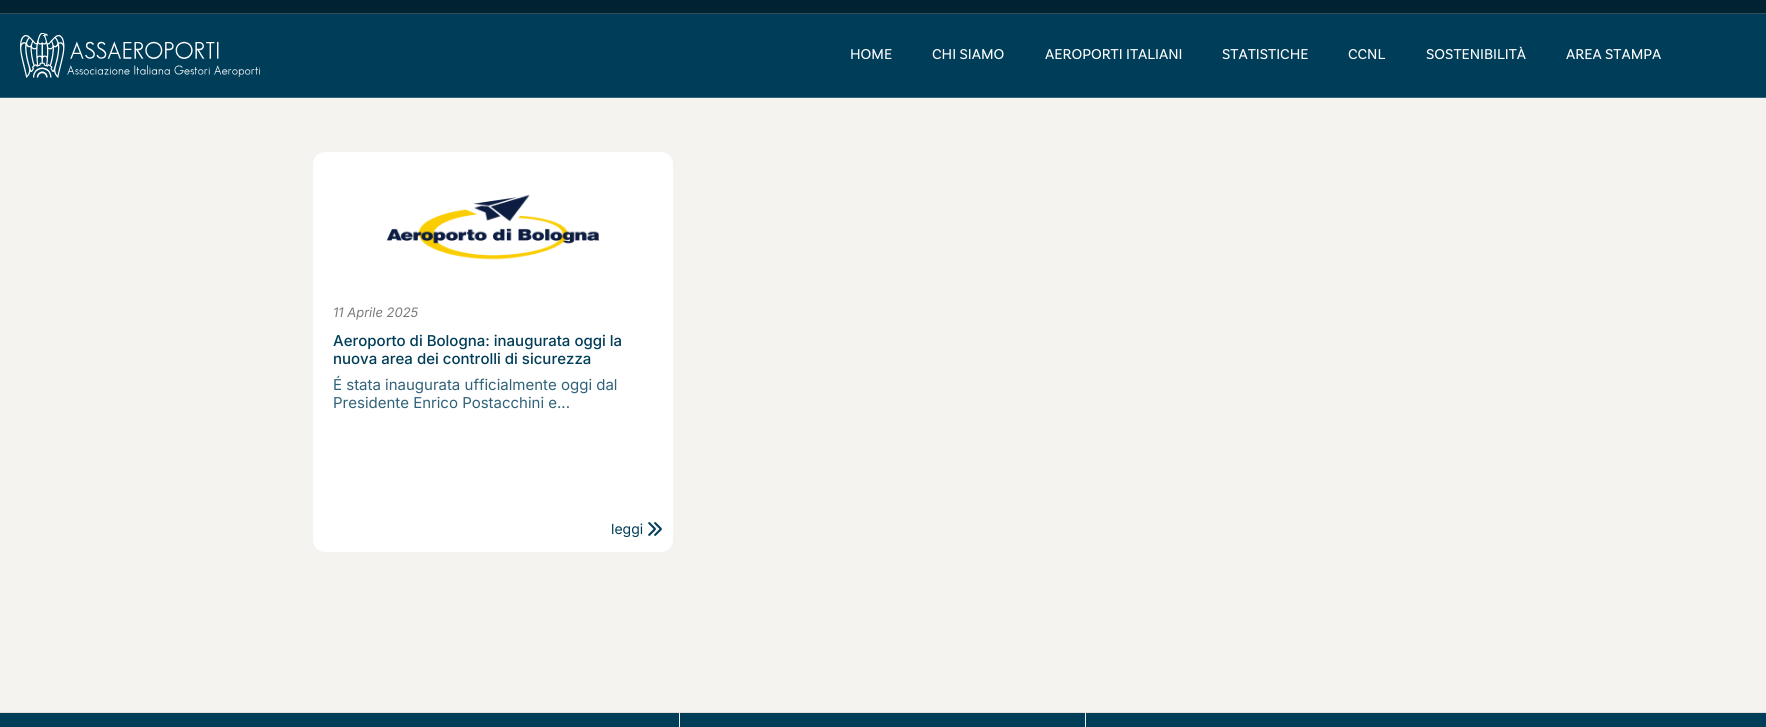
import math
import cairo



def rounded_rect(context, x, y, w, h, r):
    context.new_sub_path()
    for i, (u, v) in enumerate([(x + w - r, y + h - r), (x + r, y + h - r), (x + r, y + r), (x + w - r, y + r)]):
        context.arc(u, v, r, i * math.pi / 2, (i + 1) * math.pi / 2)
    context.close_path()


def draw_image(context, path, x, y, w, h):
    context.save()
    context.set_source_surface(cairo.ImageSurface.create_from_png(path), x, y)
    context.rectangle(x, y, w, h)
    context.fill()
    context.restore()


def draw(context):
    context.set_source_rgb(245 / 255, 243 / 255, 239 / 255)
    context.paint()
    context.set_source_rgb(0, 34 / 255, 49 / 255)
    context.rectangle(0, 0, 1766, 13)
    context.fill()
    context.set_source_rgb(51 / 255, 78 / 255, 90 / 255)
    context.rectangle(0, 13, 1766, 1)
    context.fill()
    context.set_source_rgb(0, 61 / 255, 89 / 255)
    context.rectangle(0, 14, 1766, 83)
    context.fill()
    context.set_source_rgb(51 / 255, 100 / 255, 122 / 255)
    context.rectangle(0, 97, 1766, 1)
    context.fill()
    draw_image(context, "images/1.png", 20, 33, 240, 45)
    context.set_source_rgb(1, 1, 1)
    rounded_rect(context, 313, 152, 360, 400, 12)
    context.fill()
    draw_image(context, "images/2.png", 386, 194, 214, 66)
    draw_image(context, "images/3.png", 648, 522, 14, 14)
    context.set_source_rgb(0, 61 / 255, 89 / 255)
    context.rectangle(0, 713, 1766, 14)
    context.fill()
    context.set_source_rgb(224 / 255, 224 / 255, 220 / 255)
    context.rectangle(0, 712, 1766, 1)
    context.fill()
    context.set_source_rgb(245 / 255, 243 / 255, 239 / 255)
    context.rectangle(679, 713, 1, 14)
    context.fill()
    context.rectangle(1085, 713, 1, 14)
    context.fill()
    context.select_font_face("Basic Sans")
    context.set_font_size(15)
    context.set_source_rgb(1, 1, 1)
    context.move_to(850, 59)
    context.show_text("HOME")
    context.move_to(932, 59)
    context.show_text("CHI SIAMO")
    context.move_to(1045, 59)
    context.show_text("AEROPORTI ITALIANI")
    context.move_to(1222, 59)
    context.show_text("STATISTICHE")
    context.move_to(1348, 59)
    context.show_text("CCNL")
    context.move_to(1426, 59)
    context.show_text("SOSTENIBILITÀ")
    context.move_to(1566, 59)
    context.show_text("AREA STAMPA")
    context.select_font_face("Inter", cairo.FontSlant.ITALIC)
    context.set_font_size(13)
    context.set_source_rgb(122 / 255, 122 / 255, 122 / 255)
    context.move_to(333, 317)
    context.show_text("11 Aprile 2025")
    context.select_font_face("Inter Medium")
    context.set_font_size(15)
    context.set_source_rgb(0, 61 / 255, 88 / 255)
    context.move_to(333, 346)
    context.show_text("Aeroporto di Bologna: inaugurata oggi la")
    context.move_to(333, 364)
    context.show_text("nuova area dei controlli di sicurezza")
    context.select_font_face("Inter")
    context.set_source_rgb(48 / 255, 98 / 255, 120 / 255)
    context.move_to(333, 390)
    context.show_text("É stata inaugurata ufficialmente oggi dal")
    context.move_to(333, 408)
    context.show_text("Presidente Enrico Postacchini e...")
    context.set_font_size(14)
    context.set_source_rgb(0, 61 / 255, 88 / 255)
    context.move_to(611, 534)
    context.show_text("leggi")


surface = cairo.ImageSurface(cairo.Format.RGB24, 1766, 727)
context = cairo.Context(surface)
options = cairo.FontOptions()
options.set_hint_metrics(cairo.HintMetrics.OFF)
options.set_hint_style(cairo.HintStyle.NONE)
context.set_font_options(options)
context.set_miter_limit(4)
draw(context)
surface.write_to_png("out.png")
